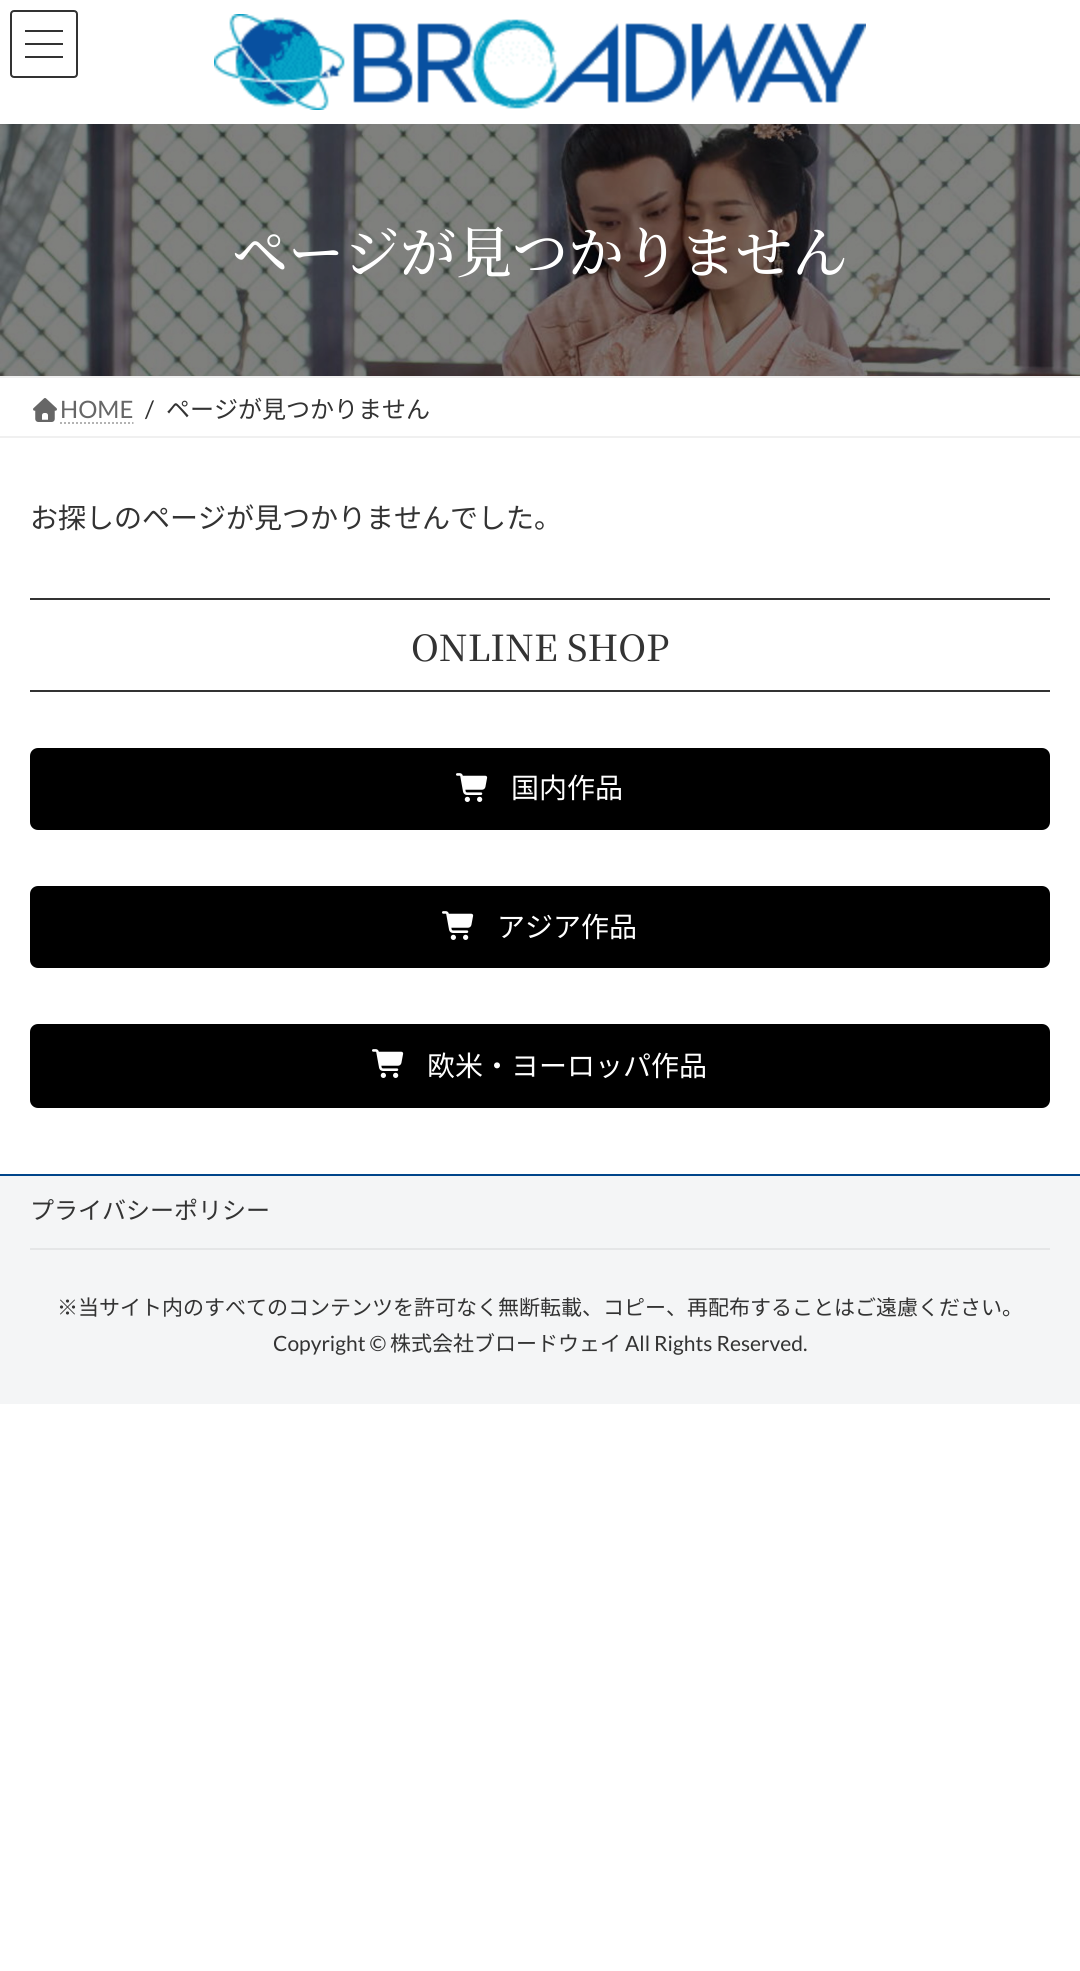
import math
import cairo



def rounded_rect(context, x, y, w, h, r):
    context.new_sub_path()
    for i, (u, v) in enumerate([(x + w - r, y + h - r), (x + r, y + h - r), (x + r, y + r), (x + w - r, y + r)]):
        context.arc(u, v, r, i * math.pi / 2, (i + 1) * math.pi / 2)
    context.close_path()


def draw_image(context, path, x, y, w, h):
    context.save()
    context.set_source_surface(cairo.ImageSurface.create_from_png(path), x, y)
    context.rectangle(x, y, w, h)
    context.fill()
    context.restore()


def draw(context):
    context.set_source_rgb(1, 1, 1)
    context.paint()
    context.set_source_rgb(51 / 255, 51 / 255, 51 / 255)
    context.rectangle(25, 30, 38, 2)
    context.fill()
    context.rectangle(25, 43, 38, 2)
    context.fill()
    context.rectangle(25, 56, 38, 2)
    context.fill()
    rounded_rect(context, 11, 11, 66, 66, 3)
    context.stroke()
    draw_image(context, "images/1.png", 214, 14, 652, 96)
    draw_image(context, "images/2.png", 0, 124, 1080, 252)
    context.set_source_rgb(240 / 255, 240 / 255, 240 / 255)
    context.rectangle(0, 376, 1080, 2)
    context.fill()
    context.rectangle(0, 436, 1080, 2)
    context.fill()
    draw_image(context, "images/3.png", 33, 398, 24, 24)
    context.new_path()
    context.move_to(60, 423)
    context.line_to(133.5, 423)
    context.set_source_rgb(179 / 255, 179 / 255, 179 / 255)
    context.set_dash([2, 2])
    context.stroke()
    context.set_source_rgb(51 / 255, 51 / 255, 51 / 255)
    context.rectangle(30, 598, 1020, 2)
    context.fill()
    context.rectangle(30, 690, 1020, 2)
    context.fill()
    context.set_source_rgb(0, 0, 0)
    rounded_rect(context, 30, 748, 1020, 82, 8)
    context.fill()
    draw_image(context, "images/4.png", 456, 773, 32, 29)
    rounded_rect(context, 30, 886, 1020, 82, 8)
    context.fill()
    draw_image(context, "images/4.png", 442, 911, 32, 29)
    rounded_rect(context, 30, 1024, 1020, 84, 8)
    context.fill()
    draw_image(context, "images/4.png", 372, 1049, 32, 29)
    context.set_source_rgb(244 / 255, 245 / 255, 246 / 255)
    context.rectangle(0, 1176, 1080, 228)
    context.fill()
    context.set_source_rgb(0, 69 / 255, 138 / 255)
    context.rectangle(0, 1174, 1080, 2)
    context.fill()
    context.set_source_rgb(229 / 255, 230 / 255, 231 / 255)
    context.rectangle(30, 1248, 1020, 2)
    context.fill()
    context.select_font_face("Noto Serif JP ExtraLight")
    context.set_font_size(56)
    context.set_source_rgb(1, 1, 1)
    context.move_to(232, 273)
    context.show_text("ページが見つかりません")
    context.select_font_face("Lato")
    context.set_font_size(24)
    context.set_source_rgb(102 / 255, 102 / 255, 102 / 255)
    context.move_to(60, 418)
    context.show_text("HOME")
    context.set_source_rgb(51 / 255, 51 / 255, 51 / 255)
    context.move_to(145, 418)
    context.show_text("/")
    context.select_font_face("Noto Sans JP")
    context.move_to(166, 418)
    context.show_text("ページが見つかりません")
    context.set_font_size(28)
    context.move_to(30, 528)
    context.show_text("お探しのページが見つかりませんでした。")
    context.select_font_face("Noto Serif JP ExtraLight")
    context.set_font_size(36)
    context.move_to(411, 661)
    context.show_text("ONLINE SHOP")
    context.select_font_face("Noto Sans JP")
    context.set_font_size(28)
    context.set_source_rgb(1, 1, 1)
    context.move_to(511, 798)
    context.show_text("国内作品")
    context.move_to(497, 937)
    context.show_text("アジア作品")
    context.move_to(427, 1076)
    context.show_text("欧米・ヨーロッパ作品")
    context.set_font_size(24)
    context.set_source_rgb(51 / 255, 51 / 255, 51 / 255)
    context.move_to(30, 1219)
    context.show_text("プライバシーポリシー")
    context.set_font_size(21)
    context.move_to(57, 1315)
    context.show_text("※当サイト内のすべてのコンテンツを許可なく無断転載、コピー、再配布することはご遠慮ください。")
    context.select_font_face("Lato")
    context.move_to(273, 1351)
    context.show_text("Copyright ©")
    context.select_font_face("Noto Sans JP")
    context.move_to(390, 1351)
    context.show_text("株式会社ブロードウェイ")
    context.select_font_face("Lato")
    context.move_to(625, 1351)
    context.show_text("All Rights Reserved.")


surface = cairo.ImageSurface(cairo.Format.RGB24, 1080, 1971)
context = cairo.Context(surface)
options = cairo.FontOptions()
options.set_hint_metrics(cairo.HintMetrics.OFF)
options.set_hint_style(cairo.HintStyle.NONE)
context.set_font_options(options)
context.set_miter_limit(4)
draw(context)
surface.write_to_png("out.png")
